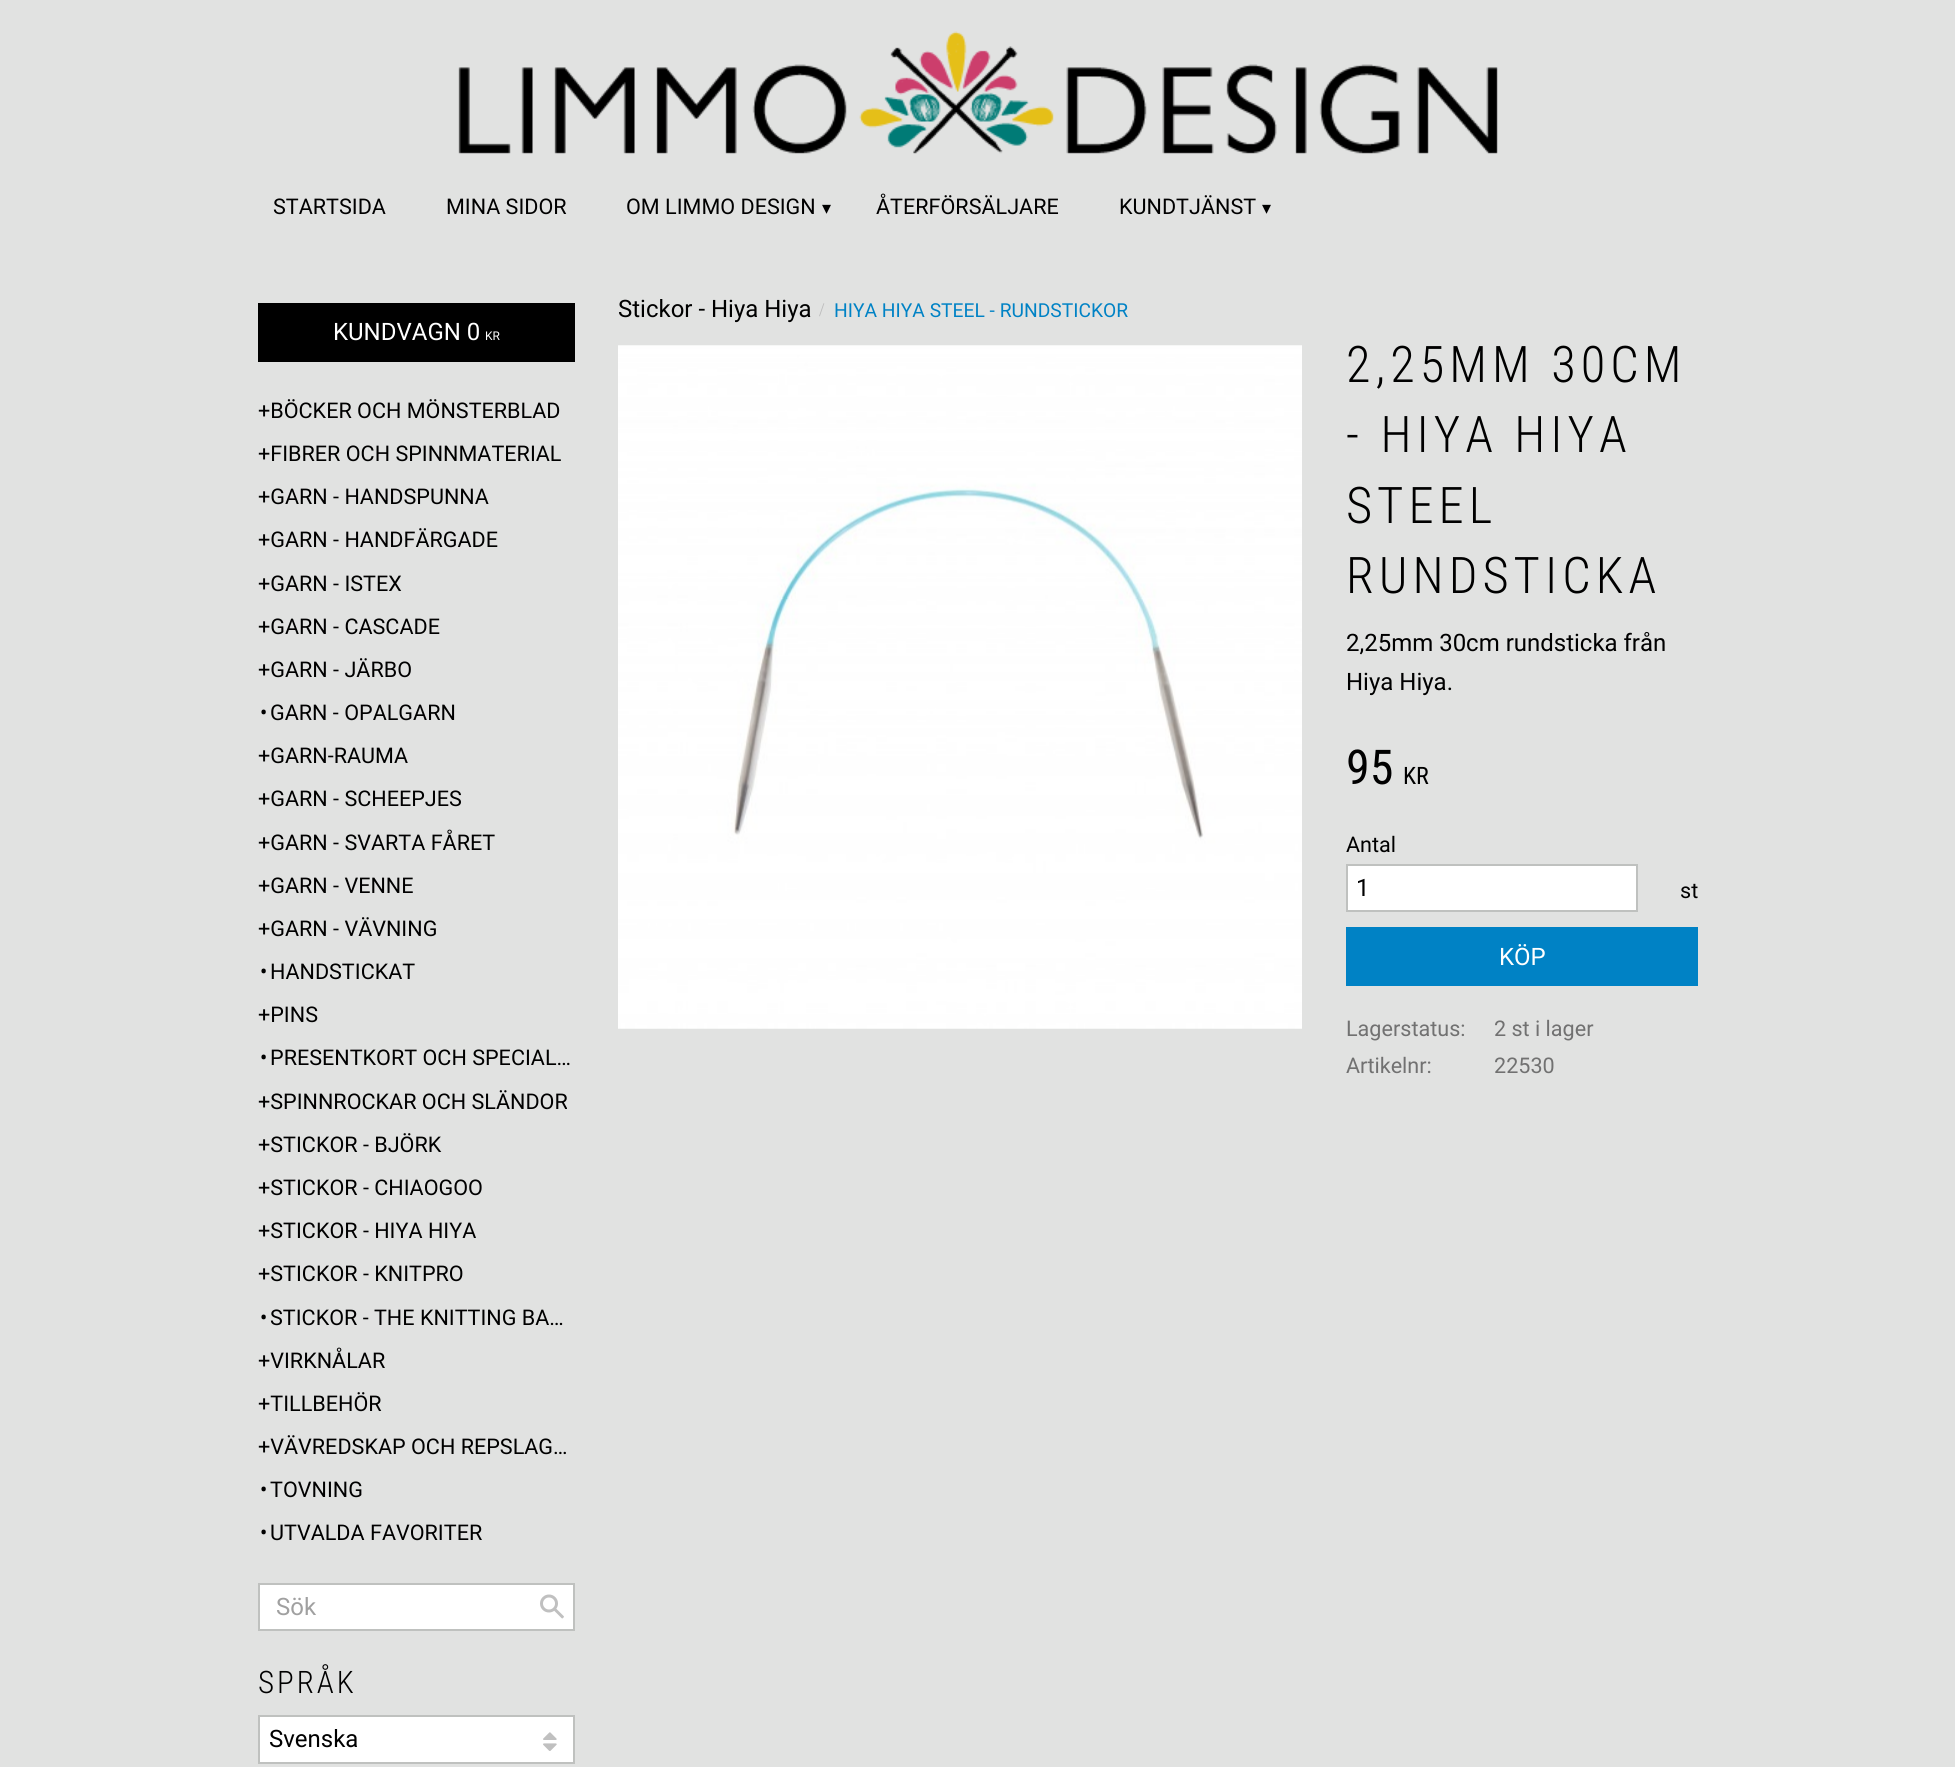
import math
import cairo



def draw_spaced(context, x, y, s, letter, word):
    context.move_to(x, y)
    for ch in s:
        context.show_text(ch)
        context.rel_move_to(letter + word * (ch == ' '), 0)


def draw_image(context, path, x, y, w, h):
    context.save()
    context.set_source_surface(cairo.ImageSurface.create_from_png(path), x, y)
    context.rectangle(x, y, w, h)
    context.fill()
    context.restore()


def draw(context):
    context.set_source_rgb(225 / 255, 226 / 255, 225 / 255)
    context.paint()
    draw_image(context, "images/1.png", 458, 31, 1040, 123)
    context.set_source_rgb(0, 0, 0)
    context.rectangle(258, 303, 317, 59)
    context.fill()
    context.set_source_rgb(1, 1, 1)
    context.rectangle(259, 1584, 315, 46)
    context.fill_preserve()
    context.set_source_rgb(191 / 255, 193 / 255, 191 / 255)
    context.stroke()
    draw_image(context, "images/2.png", 540, 1594, 24, 25)
    context.set_source_rgb(1, 1, 1)
    context.rectangle(259, 1716, 315, 47)
    context.fill_preserve()
    context.set_source_rgb(191 / 255, 193 / 255, 191 / 255)
    context.stroke()
    draw_image(context, "images/3.png", 543, 1732, 14, 19)
    draw_image(context, "images/4.png", 618, 345, 684, 684)
    context.set_source_rgb(1, 1, 1)
    context.rectangle(1347, 865, 290, 46)
    context.fill_preserve()
    context.set_source_rgb(191 / 255, 193 / 255, 191 / 255)
    context.stroke()
    context.set_source_rgb(0, 130 / 255, 197 / 255)
    context.rectangle(1346, 927, 352, 59)
    context.fill()
    context.select_font_face("Roboto")
    context.set_font_size(21.6)
    context.set_source_rgb(0, 0, 0)
    context.move_to(273, 214)
    context.show_text("STARTSIDA")
    context.move_to(446, 214)
    context.show_text("MINA SIDOR")
    context.move_to(626, 214)
    context.show_text("OM LIMMO DESIGN")
    context.select_font_face("DejaVu Sans")
    context.set_font_size(18)
    context.move_to(822, 214)
    context.show_text("▾")
    context.select_font_face("Roboto")
    context.set_font_size(21.6)
    context.move_to(876, 214)
    context.show_text("ÅTERFÖRSÄLJARE")
    context.move_to(1119, 214)
    context.show_text("KUNDTJÄNST")
    context.select_font_face("DejaVu Sans")
    context.set_font_size(18)
    context.move_to(1262, 214)
    context.show_text("▾")
    context.select_font_face("Roboto")
    context.set_font_size(24)
    context.set_source_rgb(1, 1, 1)
    context.move_to(333, 340)
    context.show_text("KUNDVAGN 0")
    context.set_font_size(12)
    context.move_to(485, 340)
    context.show_text("KR")
    context.set_font_size(21.6)
    context.set_source_rgb(0, 0, 0)
    context.move_to(258, 418)
    context.show_text("+BÖCKER OCH MÖNSTERBLAD")
    context.move_to(258, 461)
    context.show_text("+FIBRER OCH SPINNMATERIAL")
    context.move_to(258, 504)
    context.show_text("+GARN - HANDSPUNNA")
    context.move_to(258, 547)
    context.show_text("+GARN - HANDFÄRGADE")
    context.move_to(258, 591)
    context.show_text("+GARN - ISTEX")
    context.move_to(258, 634)
    context.show_text("+GARN - CASCADE")
    context.move_to(258, 677)
    context.show_text("+GARN - JÄRBO")
    context.move_to(260, 720)
    context.show_text("•")
    context.move_to(270, 720)
    context.show_text("GARN - OPALGARN")
    context.move_to(258, 763)
    context.show_text("+GARN-RAUMA")
    context.move_to(258, 806)
    context.show_text("+GARN - SCHEEPJES")
    context.move_to(258, 850)
    context.show_text("+GARN - SVARTA FÅRET")
    context.move_to(258, 893)
    context.show_text("+GARN - VENNE")
    context.move_to(258, 936)
    context.show_text("+GARN - VÄVNING")
    context.move_to(260, 979)
    context.show_text("•")
    context.move_to(270, 979)
    context.show_text("HANDSTICKAT")
    context.move_to(258, 1022)
    context.show_text("+PINS")
    context.move_to(260, 1065)
    context.show_text("•")
    context.move_to(270, 1065)
    context.show_text("PRESENTKORT OCH SPECIAL…")
    context.move_to(258, 1109)
    context.show_text("+SPINNROCKAR OCH SLÄNDOR")
    context.move_to(258, 1152)
    context.show_text("+STICKOR - BJÖRK")
    context.move_to(258, 1195)
    context.show_text("+STICKOR - CHIAOGOO")
    context.move_to(258, 1238)
    context.show_text("+STICKOR - HIYA HIYA")
    context.move_to(258, 1281)
    context.show_text("+STICKOR - KNITPRO")
    context.move_to(260, 1325)
    context.show_text("•")
    context.move_to(270, 1325)
    context.show_text("STICKOR - THE KNITTING BA…")
    context.move_to(258, 1368)
    context.show_text("+VIRKNÅLAR")
    context.move_to(258, 1411)
    context.show_text("+TILLBEHÖR")
    context.move_to(258, 1454)
    context.show_text("+VÄVREDSKAP OCH REPSLAG…")
    context.move_to(260, 1497)
    context.show_text("•")
    context.move_to(270, 1497)
    context.show_text("TOVNING")
    context.move_to(260, 1540)
    context.show_text("•")
    context.move_to(270, 1540)
    context.show_text("UTVALDA FAVORITER")
    context.set_font_size(24)
    context.set_source_rgb(160 / 255, 160 / 255, 160 / 255)
    context.move_to(276, 1615)
    context.show_text("Sök")
    context.select_font_face("Roboto Condensed Light")
    context.set_font_size(31)
    context.set_source_rgb(0, 0, 0)
    draw_spaced(context, 258, 1693, "SPRÅK", 3, 0)
    context.select_font_face("Roboto")
    context.set_font_size(24)
    context.move_to(269, 1747)
    context.show_text("Svenska")
    context.move_to(618, 317)
    context.show_text("Stickor - Hiya Hiya")
    context.select_font_face("Liberation Serif")
    context.set_font_size(19.25)
    context.set_source_rgb(189 / 255, 189 / 255, 189 / 255)
    context.move_to(819, 316)
    context.show_text("/")
    context.select_font_face("Roboto")
    context.set_source_rgb(0, 130 / 255, 197 / 255)
    context.move_to(834, 317)
    context.show_text("HIYA HIYA STEEL - RUNDSTICKOR")
    context.select_font_face("Roboto Condensed Light")
    context.set_font_size(50.5)
    context.set_source_rgb(0, 0, 0)
    draw_spaced(context, 1346, 382, "2,25MM 30CM", 5, 0)
    draw_spaced(context, 1346, 452, "- HIYA HIYA", 5, 0)
    draw_spaced(context, 1346, 523, "STEEL", 5, 0)
    draw_spaced(context, 1346, 593, "RUNDSTICKA", 5, 0)
    context.select_font_face("Roboto")
    context.set_font_size(24)
    context.move_to(1346, 651)
    context.show_text("2,25mm 30cm rundsticka från")
    context.move_to(1346, 690)
    context.show_text("Hiya Hiya.")
    context.select_font_face("Roboto Condensed")
    context.set_font_size(48)
    context.move_to(1346, 784)
    context.show_text("95")
    context.set_font_size(24)
    context.move_to(1403, 784)
    context.show_text("KR")
    context.select_font_face("Roboto")
    context.set_font_size(21.6)
    context.move_to(1346, 852)
    context.show_text("Antal")
    context.set_font_size(24)
    context.move_to(1356, 896)
    context.show_text("1")
    context.set_font_size(21.6)
    context.move_to(1680, 898)
    context.show_text("st")
    context.set_font_size(24)
    context.set_source_rgb(1, 1, 1)
    context.move_to(1499, 965)
    context.show_text("KÖP")
    context.set_font_size(21.6)
    context.set_source_rgb(113 / 255, 113 / 255, 113 / 255)
    context.move_to(1346, 1036)
    context.show_text("Lagerstatus:")
    context.move_to(1494, 1036)
    context.show_text("2 st i lager")
    context.move_to(1346, 1073)
    context.show_text("Artikelnr:")
    context.move_to(1494, 1073)
    context.show_text("22530")


surface = cairo.ImageSurface(cairo.Format.RGB24, 1955, 1767)
context = cairo.Context(surface)
options = cairo.FontOptions()
options.set_hint_metrics(cairo.HintMetrics.OFF)
options.set_hint_style(cairo.HintStyle.NONE)
context.set_font_options(options)
context.set_miter_limit(4)
draw(context)
surface.write_to_png("out.png")
